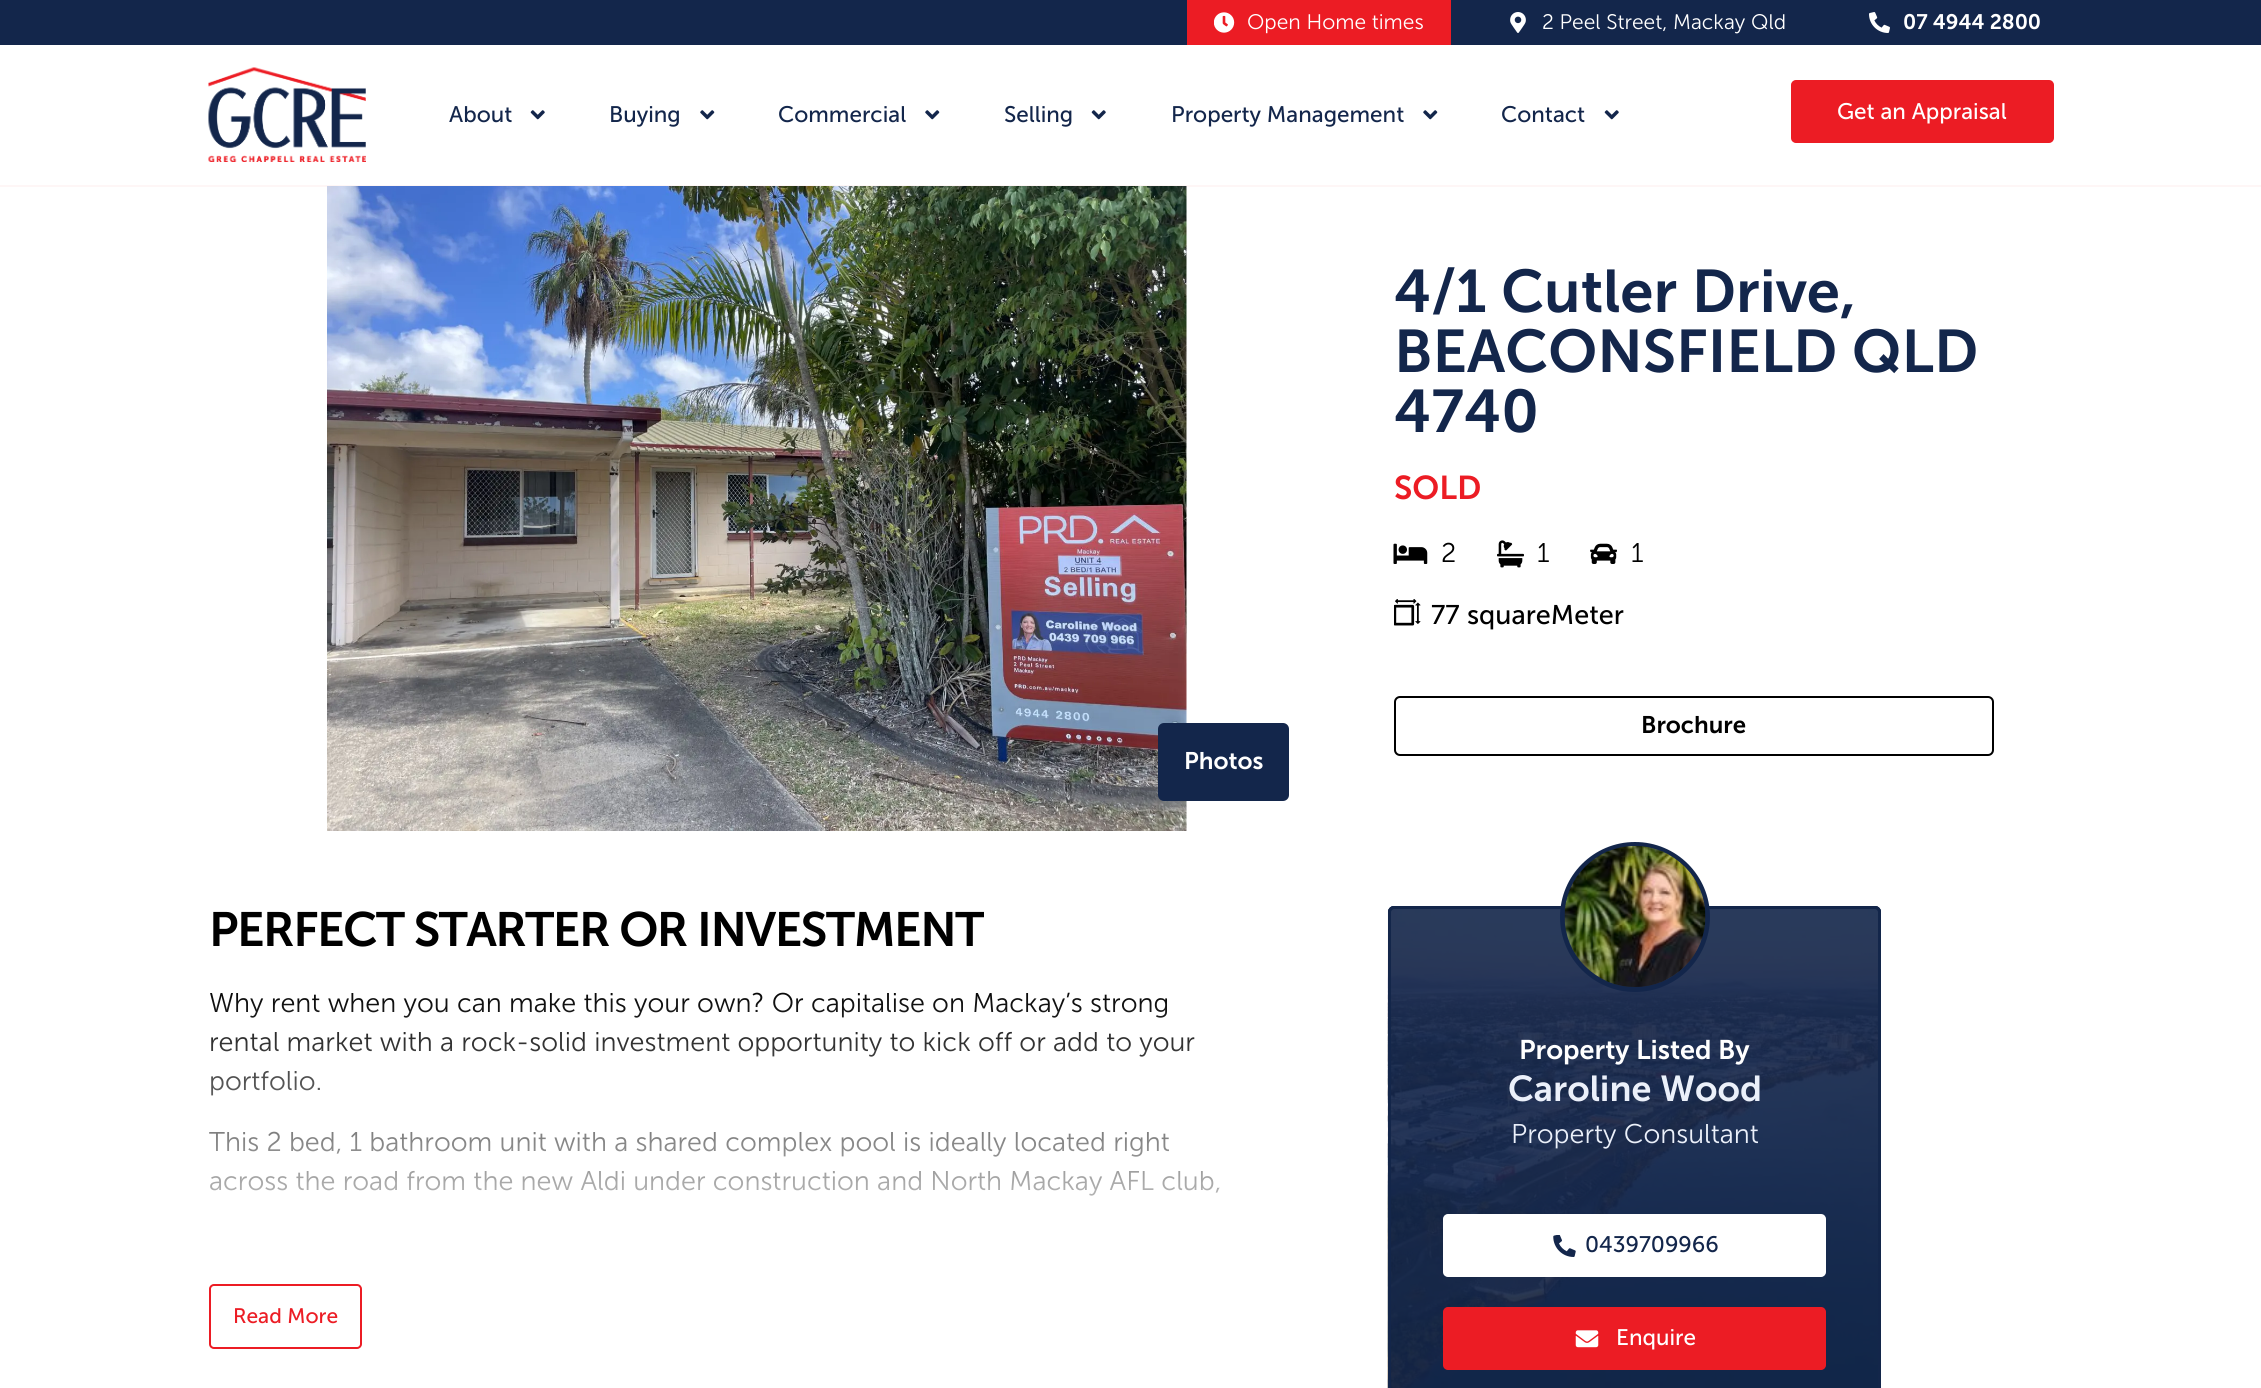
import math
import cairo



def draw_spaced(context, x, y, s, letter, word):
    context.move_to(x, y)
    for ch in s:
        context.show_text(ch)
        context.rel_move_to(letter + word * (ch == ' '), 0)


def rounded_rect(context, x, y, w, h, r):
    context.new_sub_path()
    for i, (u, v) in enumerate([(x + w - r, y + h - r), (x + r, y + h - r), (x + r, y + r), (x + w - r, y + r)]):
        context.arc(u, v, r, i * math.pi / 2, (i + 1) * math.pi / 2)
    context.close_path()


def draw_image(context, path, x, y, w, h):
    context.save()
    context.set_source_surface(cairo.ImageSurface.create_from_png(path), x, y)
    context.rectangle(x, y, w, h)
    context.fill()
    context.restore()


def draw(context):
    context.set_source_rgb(1, 1, 1)
    context.paint()
    context.set_source_rgb(19 / 255, 38 / 255, 75 / 255)
    context.rectangle(0, 0, 2261, 45)
    context.fill()
    context.set_source_rgb(236 / 255, 28 / 255, 36 / 255)
    context.rectangle(1187, 0, 264, 45)
    context.fill()
    draw_image(context, "images/1.png", 1214, 12, 21, 21)
    draw_image(context, "images/2.png", 1510, 12, 16, 21)
    draw_image(context, "images/3.png", 1869, 12, 21, 21)
    draw_image(context, "images/4.png", 208, 67, 158, 95)
    draw_image(context, "images/5.png", 530, 110, 15, 10)
    draw_image(context, "images/6.png", 700, 110, 15, 10)
    draw_image(context, "images/6.png", 925, 110, 15, 10)
    draw_image(context, "images/5.png", 1091, 110, 15, 10)
    draw_image(context, "images/6.png", 1423, 110, 15, 10)
    draw_image(context, "images/5.png", 1604, 110, 15, 10)
    rounded_rect(context, 1792, 81, 261, 61, 4)
    context.fill_preserve()
    context.stroke()
    context.set_source_rgb(254 / 255, 246 / 255, 246 / 255)
    context.rectangle(0, 185, 2261, 2)
    context.fill()
    draw_image(context, "images/7.png", 1393, 543, 35, 21)
    draw_image(context, "images/8.png", 1497, 540, 27, 28)
    draw_image(context, "images/9.png", 1590, 543, 27, 21)
    draw_image(context, "images/10.png", 1394, 599, 27, 27)
    rounded_rect(context, 1395, 697, 598, 58, 5)
    context.set_source_rgb(0, 0, 0)
    context.stroke()
    draw_image(context, "images/11.png", 327, 186, 860, 645)
    context.set_source_rgb(19 / 255, 38 / 255, 75 / 255)
    rounded_rect(context, 1159, 724, 129, 76, 5)
    context.fill_preserve()
    context.stroke()
    rounded_rect(context, 210, 1285, 151, 63, 4)
    context.set_source_rgb(236 / 255, 28 / 255, 36 / 255)
    context.stroke()
    draw_image(context, "images/12.png", 1387, 909, 494, 479)
    rounded_rect(context, 1389.5, 907.5, 490, 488, 4.5)
    context.set_source_rgb(19 / 255, 38 / 255, 75 / 255)
    context.set_line_width(3)
    context.stroke()
    context.set_source_rgba(19 / 255, 38 / 255, 75 / 255, 0.9)
    rounded_rect(context, 1388, 906, 493, 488, 6)
    context.fill()
    rounded_rect(context, 1389.5, 907.5, 490, 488, 4.5)
    context.stroke()
    context.arc(1635, 917, 72.5, 0, 2 * math.pi)
    context.set_source_rgb(19 / 255, 38 / 255, 75 / 255)
    context.set_line_width(5)
    context.stroke()
    draw_image(context, "images/13.png", 1564, 846, 142, 141)
    context.set_source_rgb(1, 1, 1)
    rounded_rect(context, 1444, 1215, 381, 61, 4)
    context.fill_preserve()
    context.set_line_width(2)
    context.stroke()
    draw_image(context, "images/14.png", 1553, 1235, 23, 22)
    context.set_source_rgb(236 / 255, 28 / 255, 36 / 255)
    rounded_rect(context, 1444, 1308, 381, 61, 4)
    context.fill_preserve()
    context.stroke()
    draw_image(context, "images/15.png", 1575, 1330, 24, 18)
    context.select_font_face("Museo Sans Light")
    context.set_font_size(21)
    context.set_source_rgb(1, 1, 1)
    context.move_to(1247, 29)
    context.show_text("Open Home times")
    context.move_to(1542, 29)
    context.show_text("2 Peel Street, Mackay Qld")
    context.select_font_face("Museo Sans SemiBold")
    context.move_to(1903, 29)
    context.show_text("07 4944 2800")
    context.select_font_face("Museo Sans")
    context.set_font_size(22.5)
    context.set_source_rgb(19 / 255, 38 / 255, 75 / 255)
    context.move_to(449, 122)
    context.show_text("About")
    context.move_to(609, 122)
    context.show_text("Buying")
    context.move_to(778, 122)
    context.show_text("Commercial")
    context.move_to(1004, 122)
    context.show_text("Selling")
    context.move_to(1171, 122)
    context.show_text("Property Management")
    context.move_to(1501, 122)
    context.show_text("Contact")
    context.set_source_rgb(1, 1, 1)
    context.move_to(1837, 119)
    context.show_text("Get an Appraisal")
    context.select_font_face("Museo Sans SemiBold")
    context.set_font_size(60)
    context.set_source_rgb(19 / 255, 38 / 255, 75 / 255)
    context.move_to(1394, 312)
    context.show_text("4/1 Cutler Drive,")
    context.move_to(1394, 372)
    context.show_text("BEACONSFIELD QLD")
    context.move_to(1394, 432)
    context.show_text("4740")
    context.set_font_size(33)
    context.set_source_rgb(236 / 255, 28 / 255, 36 / 255)
    context.move_to(1394, 499)
    context.show_text("SOLD")
    context.select_font_face("Museo Sans Light")
    context.set_font_size(27)
    context.set_source_rgb(0, 0, 0)
    context.move_to(1441, 562)
    context.show_text("2")
    context.move_to(1537, 562)
    context.show_text("1")
    context.move_to(1631, 562)
    context.show_text("1")
    context.select_font_face("Museo Sans")
    context.move_to(1431, 624)
    context.show_text("77")
    context.move_to(1467, 624)
    context.show_text("squareMeter")
    context.select_font_face("Museo Sans SemiBold")
    context.set_font_size(24)
    context.move_to(1641, 733)
    context.show_text("Brochure")
    context.set_source_rgb(1, 1, 1)
    context.move_to(1184, 769)
    context.show_text("Photos")
    context.set_font_size(48)
    context.set_source_rgb(0, 0, 0)
    draw_spaced(context, 209, 946, "PERFECT STARTER OR INVESTMENT", -1.5, 0)
    context.select_font_face("Museo Sans Light")
    context.set_font_size(27)
    context.move_to(209, 1012)
    context.show_text("Why rent when you can make this your own? Or capitalise on Mackay’s strong")
    context.move_to(209, 1051)
    context.show_text("rental market with a rock-solid investment opportunity to kick off or add to your")
    context.move_to(209, 1090)
    context.show_text("portfolio.")
    context.move_to(209, 1151)
    context.show_text("This 2 bed, 1 bathroom unit with a shared complex pool is ideally located right")
    context.move_to(209, 1190)
    context.show_text("across the road from the new Aldi under construction and North Mackay AFL club,")
    gradient = cairo.LinearGradient(723, 1284, 723, 984)
    gradient.add_color_stop_rgba(0, 1, 1, 1, 1)
    gradient.add_color_stop_rgba(1, 1, 1, 1, 0)
    context.set_source(gradient)
    context.rectangle(209, 993, 1010, 203)
    context.fill()
    context.select_font_face("Museo Sans")
    context.set_font_size(21)
    context.set_source_rgb(236 / 255, 28 / 255, 36 / 255)
    context.move_to(233, 1323)
    context.show_text("Read More")
    context.select_font_face("Museo Sans SemiBold")
    context.set_font_size(27)
    context.set_source_rgb(1, 1, 1)
    context.move_to(1519, 1059)
    context.show_text("Property Listed By")
    context.set_font_size(36)
    context.set_source_rgb(235 / 255, 240 / 255, 250 / 255)
    context.move_to(1508, 1101)
    context.show_text("Caroline Wood")
    context.select_font_face("Museo Sans Light")
    context.set_font_size(27)
    context.move_to(1511, 1143)
    context.show_text("Property Consultant")
    context.select_font_face("Museo Sans")
    context.set_font_size(22.5)
    context.set_source_rgb(19 / 255, 38 / 255, 75 / 255)
    context.move_to(1585, 1252)
    context.show_text("0439709966")
    context.set_source_rgb(1, 1, 1)
    context.move_to(1616, 1345)
    context.show_text("Enquire")


surface = cairo.ImageSurface(cairo.Format.RGB24, 2261, 1388)
context = cairo.Context(surface)
options = cairo.FontOptions()
options.set_hint_metrics(cairo.HintMetrics.OFF)
options.set_hint_style(cairo.HintStyle.NONE)
context.set_font_options(options)
context.set_miter_limit(4)
draw(context)
surface.write_to_png("out.png")
